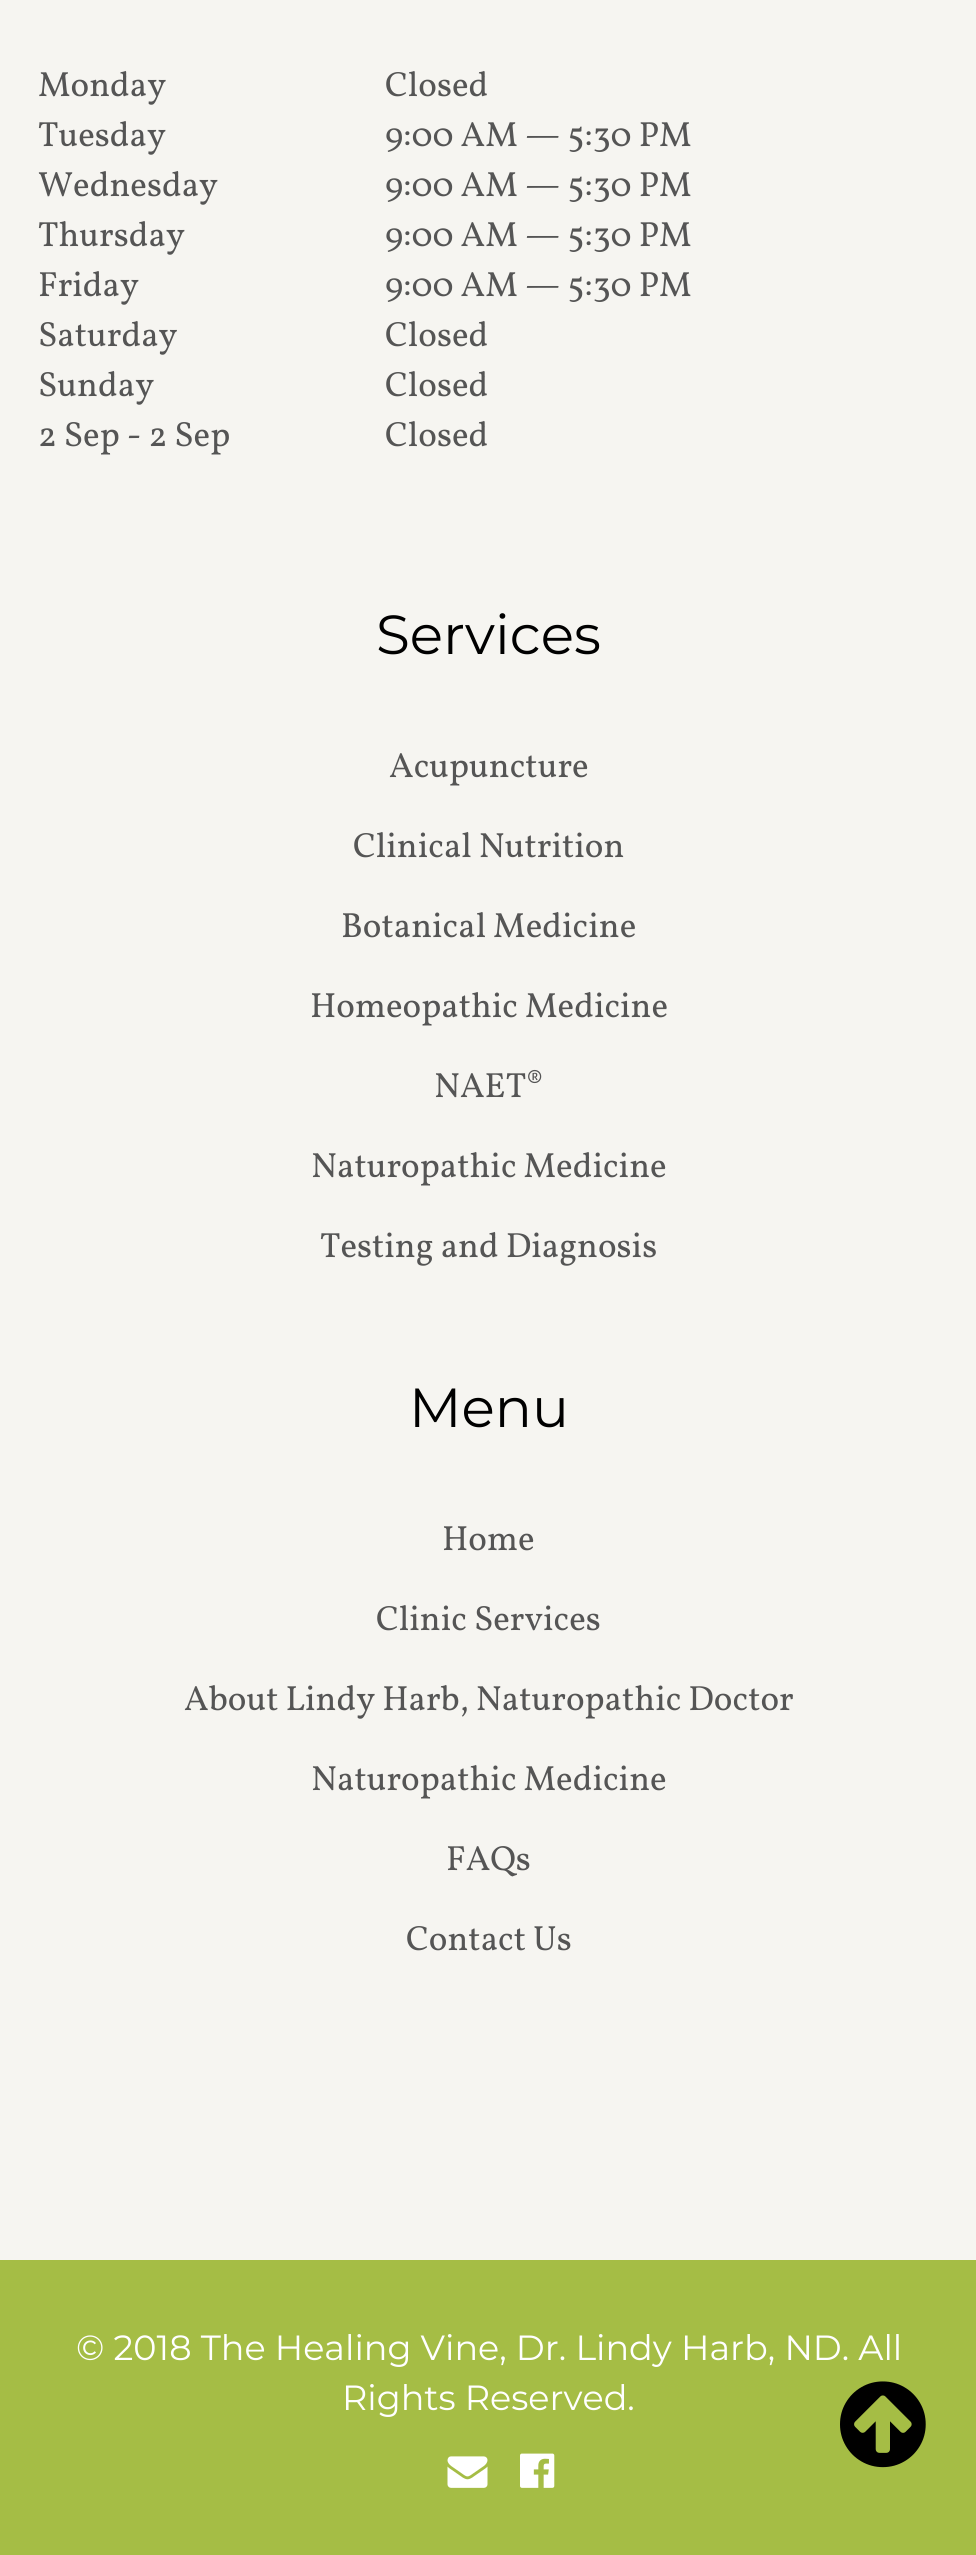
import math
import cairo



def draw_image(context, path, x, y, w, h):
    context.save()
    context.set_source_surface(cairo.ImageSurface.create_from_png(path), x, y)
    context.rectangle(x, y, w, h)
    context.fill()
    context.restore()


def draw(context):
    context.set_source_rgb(246 / 255, 245 / 255, 241 / 255)
    context.paint()
    context.set_source_rgb(165 / 255, 189 / 255, 69 / 255)
    context.rectangle(0, 2260, 976, 295)
    context.fill()
    draw_image(context, "images/1.png", 447, 2456, 41, 32)
    draw_image(context, "images/2.png", 520, 2453, 35, 35)
    draw_image(context, "images/3.png", 840, 2381, 86, 87)
    context.select_font_face("Vollkorn")
    context.set_font_size(35)
    context.set_source_rgb(85 / 255, 85 / 255, 85 / 255)
    context.move_to(38, 96)
    context.show_text("Monday")
    context.move_to(385, 96)
    context.show_text("Closed")
    context.move_to(38, 146)
    context.show_text("Tuesday")
    context.move_to(385, 146)
    context.show_text("9:00 AM — 5:30 PM")
    context.move_to(38, 196)
    context.show_text("Wednesday")
    context.move_to(385, 196)
    context.show_text("9:00 AM — 5:30 PM")
    context.move_to(38, 246)
    context.show_text("Thursday")
    context.move_to(385, 246)
    context.show_text("9:00 AM — 5:30 PM")
    context.move_to(38, 296)
    context.show_text("Friday")
    context.move_to(385, 296)
    context.show_text("9:00 AM — 5:30 PM")
    context.move_to(38, 346)
    context.show_text("Saturday")
    context.move_to(385, 346)
    context.show_text("Closed")
    context.move_to(38, 396)
    context.show_text("Sunday")
    context.move_to(385, 396)
    context.show_text("Closed")
    context.move_to(38, 446)
    context.show_text("2 Sep - 2 Sep")
    context.move_to(385, 446)
    context.show_text("Closed")
    context.select_font_face("Montserrat")
    context.set_font_size(55)
    context.set_source_rgb(0, 0, 0)
    context.move_to(376, 654)
    context.show_text("Services")
    context.select_font_face("Vollkorn")
    context.set_font_size(35)
    context.set_source_rgb(85 / 255, 85 / 255, 85 / 255)
    context.move_to(389, 777)
    context.show_text("Acupuncture")
    context.move_to(353, 857)
    context.show_text("Clinical Nutrition")
    context.move_to(341, 937)
    context.show_text("Botanical Medicine")
    context.move_to(310, 1017)
    context.show_text("Homeopathic Medicine")
    context.move_to(434, 1097)
    context.show_text("NAET®")
    context.move_to(311, 1177)
    context.show_text("Naturopathic Medicine")
    context.move_to(320, 1257)
    context.show_text("Testing and Diagnosis")
    context.select_font_face("Montserrat")
    context.set_font_size(55)
    context.set_source_rgb(0, 0, 0)
    context.move_to(409, 1427)
    context.show_text("Menu")
    context.select_font_face("Vollkorn")
    context.set_font_size(35)
    context.set_source_rgb(85 / 255, 85 / 255, 85 / 255)
    context.move_to(442, 1550)
    context.show_text("Home")
    context.move_to(376, 1630)
    context.show_text("Clinic Services")
    context.move_to(184, 1710)
    context.show_text("About Lindy Harb, Naturopathic Doctor")
    context.move_to(311, 1790)
    context.show_text("Naturopathic Medicine")
    context.move_to(446, 1870)
    context.show_text("FAQs")
    context.move_to(406, 1950)
    context.show_text("Contact Us")
    context.select_font_face("Montserrat")
    context.set_source_rgb(1, 1, 1)
    context.move_to(76, 2360)
    context.show_text("© 2018 The Healing Vine, Dr. Lindy Harb, ND. All")
    context.move_to(342, 2410)
    context.show_text("Rights Reserved.")


surface = cairo.ImageSurface(cairo.Format.RGB24, 976, 2555)
context = cairo.Context(surface)
options = cairo.FontOptions()
options.set_hint_metrics(cairo.HintMetrics.OFF)
options.set_hint_style(cairo.HintStyle.NONE)
context.set_font_options(options)
context.set_miter_limit(4)
draw(context)
surface.write_to_png("out.png")
